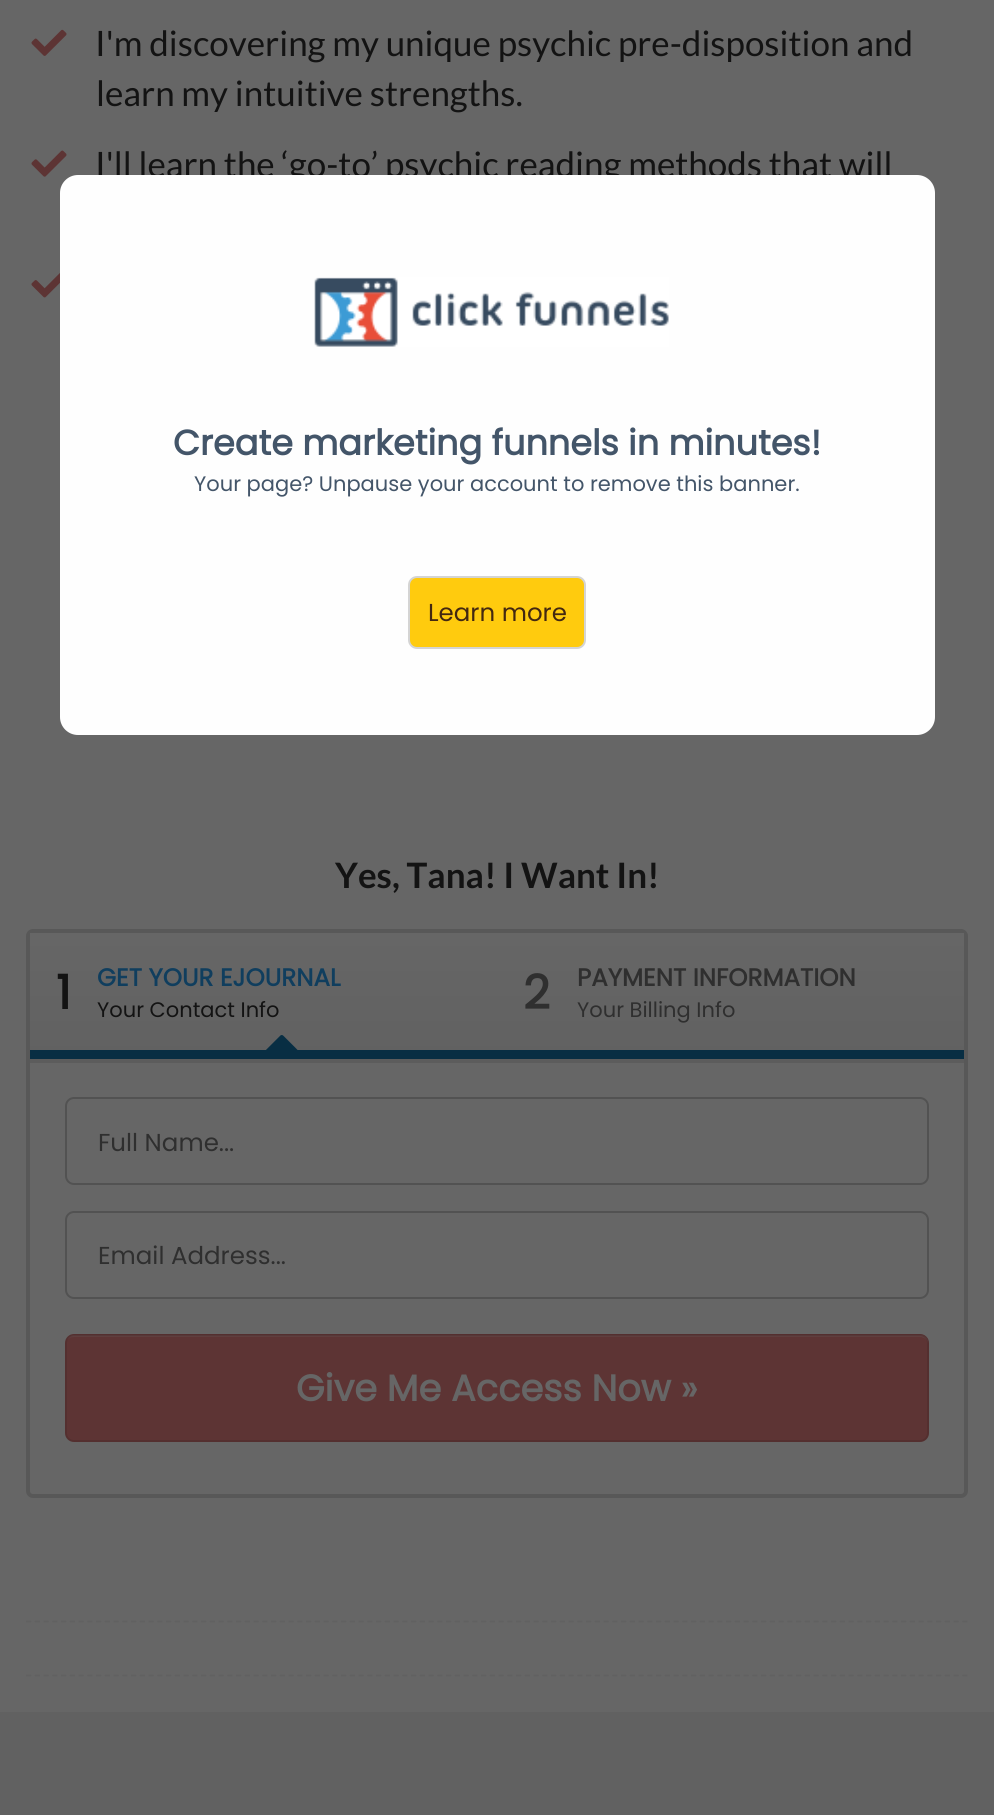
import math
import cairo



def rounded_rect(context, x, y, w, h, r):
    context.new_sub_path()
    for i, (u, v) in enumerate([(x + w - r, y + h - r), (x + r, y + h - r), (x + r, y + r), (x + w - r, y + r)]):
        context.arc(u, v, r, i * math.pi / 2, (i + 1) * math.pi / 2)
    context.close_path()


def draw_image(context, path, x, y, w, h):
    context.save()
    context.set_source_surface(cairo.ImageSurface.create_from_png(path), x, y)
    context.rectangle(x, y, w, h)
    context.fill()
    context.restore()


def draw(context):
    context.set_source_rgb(97 / 255, 97 / 255, 97 / 255)
    context.paint()
    context.set_source_rgb(102 / 255, 102 / 255, 102 / 255)
    context.rectangle(0, 0, 994, 1712)
    context.fill()
    draw_image(context, "images/1.png", 31, 29, 36, 27)
    draw_image(context, "images/2.png", 31, 150, 36, 27)
    draw_image(context, "images/3.png", 31, 273, 29, 25)
    rounded_rect(context, 28, 931, 938, 565, 5)
    context.set_source_rgb(88 / 255, 88 / 255, 88 / 255)
    context.set_line_width(4)
    context.stroke()
    gradient = cairo.LinearGradient(497, 933, 497, 1059)
    gradient.add_color_stop_rgba(0, 102 / 255, 102 / 255, 102 / 255, 1)
    gradient.add_color_stop_rgba(1, 97 / 255, 97 / 255, 97 / 255, 1)
    context.set_source(gradient)
    context.rectangle(30, 933, 934, 117)
    context.fill()
    context.set_source_rgb(92 / 255, 92 / 255, 92 / 255)
    context.rectangle(30, 1059, 934, 4)
    context.fill()
    context.set_source_rgb(8 / 255, 46 / 255, 67 / 255)
    context.rectangle(30, 1050, 934, 9)
    context.fill()
    draw_image(context, "images/4.png", 266, 1035, 32, 15)
    rounded_rect(context, 66, 1098, 862, 86, 8)
    context.set_source_rgb(82 / 255, 82 / 255, 82 / 255)
    context.set_line_width(2)
    context.stroke()
    rounded_rect(context, 66, 1212, 862, 86, 8)
    context.stroke()
    context.set_source_rgb(93 / 255, 52 / 255, 52 / 255)
    rounded_rect(context, 65, 1334, 864, 108, 9)
    context.fill()
    context.set_source_rgb(95 / 255, 62 / 255, 62 / 255)
    context.new_path()
    context.move_to(74, 1337)
    context.line_to(920, 1337)
    context.curve_to(924, 1337, 928, 1340, 928, 1344)
    context.line_to(928, 1342)
    context.curve_to(928, 1338, 925, 1335, 921, 1335)
    context.line_to(74, 1335)
    context.curve_to(71, 1335, 68, 1337, 67, 1340)
    context.curve_to(69, 1338, 71, 1337, 74, 1337)
    context.close_path()
    context.fill()
    rounded_rect(context, 66, 1335, 862, 106, 8)
    context.set_source_rgba(0, 0, 0, 0.1)
    context.stroke()
    context.new_path()
    context.move_to(26, 1621.5)
    context.line_to(968, 1621.5)
    context.set_source_rgb(97 / 255, 97 / 255, 97 / 255)
    context.set_line_width(1.8)
    context.set_dash([5.25, 3.5])
    context.stroke()
    context.new_path()
    context.move_to(26, 1675.5)
    context.line_to(968, 1675.5)
    context.stroke()
    context.select_font_face("Lato")
    context.set_font_size(35)
    context.set_source_rgb(19 / 255, 19 / 255, 19 / 255)
    context.move_to(95, 56)
    context.show_text("I'm discovering my unique psychic pre-disposition and")
    context.move_to(96, 106)
    context.show_text("learn my intuitive strengths.")
    context.move_to(95, 177)
    context.show_text("I'll learn the ‘go-to’ psychic reading methods that will")
    context.select_font_face("Lato", cairo.FontSlant.NORMAL, cairo.FontWeight.BOLD)
    context.move_to(335, 888)
    context.show_text("Yes, Tana! I Want In!")
    context.select_font_face("Poppins", cairo.FontSlant.NORMAL, cairo.FontWeight.BOLD)
    context.set_font_size(47)
    context.move_to(56, 1009)
    context.show_text("1")
    context.set_font_size(24.5)
    context.set_source_rgb(16 / 255, 62 / 255, 94 / 255)
    context.move_to(97, 986)
    context.show_text("GET YOUR EJOURNAL")
    context.select_font_face("Poppins")
    context.set_font_size(21)
    context.set_source_rgb(19 / 255, 19 / 255, 19 / 255)
    context.move_to(97, 1017)
    context.show_text("Your Contact Info")
    context.select_font_face("Poppins", cairo.FontSlant.NORMAL, cairo.FontWeight.BOLD)
    context.set_font_size(47)
    context.set_source_rgb(47 / 255, 47 / 255, 47 / 255)
    context.move_to(523, 1009)
    context.show_text("2")
    context.set_font_size(24.5)
    context.move_to(577, 986)
    context.show_text("PAYMENT INFORMATION")
    context.select_font_face("Poppins")
    context.set_font_size(21)
    context.move_to(577, 1017)
    context.show_text("Your Billing Info")
    context.set_font_size(24.5)
    context.move_to(98, 1151)
    context.show_text("Full Name...")
    context.move_to(98, 1264)
    context.show_text("Email Address...")
    context.select_font_face("Poppins", cairo.FontSlant.NORMAL, cairo.FontWeight.BOLD)
    context.set_font_size(36.75)
    context.set_source_rgb(102 / 255, 102 / 255, 102 / 255)
    context.move_to(296, 1401)
    context.show_text("Give Me Access Now »")
    context.set_source_rgb(254 / 255, 254 / 255, 254 / 255)
    rounded_rect(context, 60, 175, 875, 560, 18)
    context.fill()
    draw_image(context, "images/5.png", 314, 277, 355, 70)
    context.set_font_size(35)
    context.set_source_rgb(67 / 255, 85 / 255, 105 / 255)
    context.move_to(173, 455)
    context.show_text("Create marketing funnels in minutes!")
    context.select_font_face("Poppins")
    context.set_font_size(21)
    context.move_to(194, 491)
    context.show_text("Your page? Unpause your account to remove this banner.")
    context.set_source_rgb(1, 203 / 255, 14 / 255)
    rounded_rect(context, 409, 577, 176, 71, 8)
    context.fill_preserve()
    context.set_source_rgb(212 / 255, 212 / 255, 212 / 255)
    context.set_line_width(2)
    context.set_dash([])
    context.stroke()
    context.set_font_size(24.5)
    context.set_source_rgb(67 / 255, 40 / 255, 17 / 255)
    context.move_to(428, 621)
    context.show_text("Learn more")


surface = cairo.ImageSurface(cairo.Format.RGB24, 994, 1815)
context = cairo.Context(surface)
options = cairo.FontOptions()
options.set_hint_metrics(cairo.HintMetrics.OFF)
options.set_hint_style(cairo.HintStyle.NONE)
context.set_font_options(options)
context.set_miter_limit(4)
draw(context)
surface.write_to_png("out.png")
